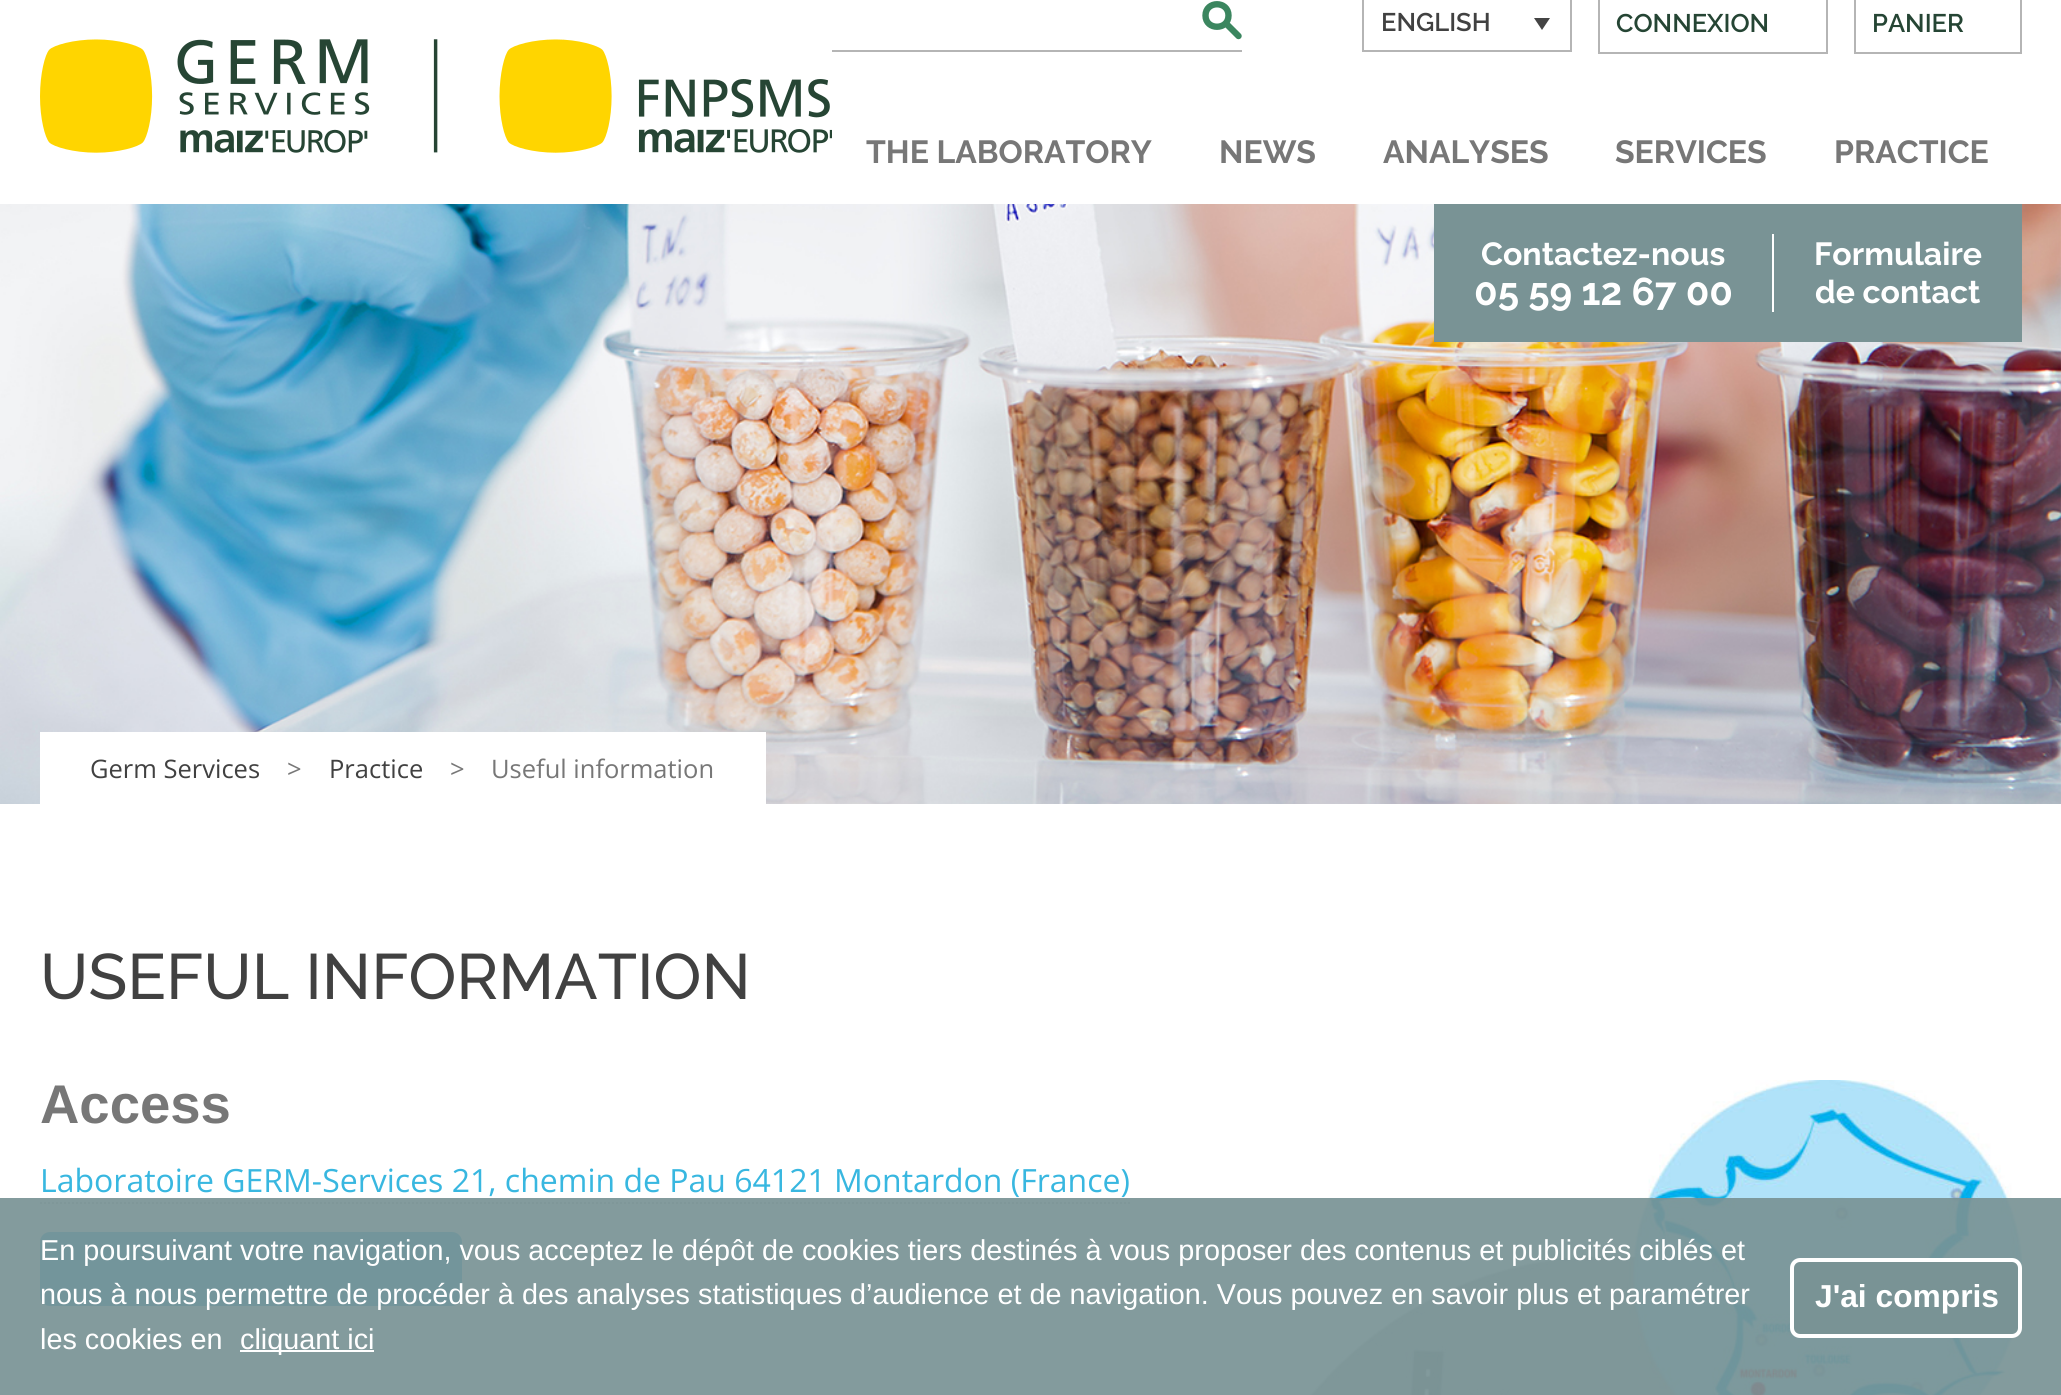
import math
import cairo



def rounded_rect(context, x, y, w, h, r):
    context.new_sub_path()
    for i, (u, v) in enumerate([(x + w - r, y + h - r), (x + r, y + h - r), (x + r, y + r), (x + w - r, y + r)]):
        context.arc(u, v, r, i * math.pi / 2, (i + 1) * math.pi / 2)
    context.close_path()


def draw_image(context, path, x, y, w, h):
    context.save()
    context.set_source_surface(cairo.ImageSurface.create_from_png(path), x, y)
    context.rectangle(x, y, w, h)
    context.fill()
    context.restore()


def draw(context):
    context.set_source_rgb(1, 1, 1)
    context.paint()
    draw_image(context, "images/1.png", 40, 39, 792, 114)
    context.new_path()
    context.move_to(1228.5, 15.5)
    context.curve_to(1228.5, 30.5, 1205.5, 30.5, 1205.5, 15.5)
    context.curve_to(1205.5, 0.5, 1228.5, 0.5, 1228.5, 15.5)
    context.close_path()
    context.move_to(1226, 23.5)
    context.line_to(1238.5, 36)
    context.set_source_rgb(59 / 255, 134 / 255, 95 / 255)
    context.set_line_width(6.4)
    context.set_line_cap(cairo.LineCap.ROUND)
    context.set_line_join(cairo.LineJoin.ROUND)
    context.stroke()
    context.set_source_rgb(181 / 255, 181 / 255, 181 / 255)
    context.rectangle(832, 50, 410, 2)
    context.fill()
    context.rectangle(1363, -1, 208, 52)
    context.set_line_width(2)
    context.set_line_cap(cairo.LineCap.BUTT)
    context.set_line_join(cairo.LineJoin.MITER)
    context.stroke()
    context.set_source_rgb(68 / 255, 68 / 255, 68 / 255)
    context.new_path()
    context.move_to(1534, 18)
    context.line_to(1550, 18)
    context.line_to(1542, 30)
    context.close_path()
    context.fill()
    context.rectangle(1599, -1, 228, 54)
    context.set_source_rgb(181 / 255, 181 / 255, 181 / 255)
    context.stroke()
    context.rectangle(1855, -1, 166, 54)
    context.stroke()
    draw_image(context, "images/2.png", 0, 204, 2061, 600)
    context.set_source_rgb(121 / 255, 147 / 255, 149 / 255)
    context.rectangle(1434, 204, 588, 138)
    context.fill()
    context.set_source_rgb(1, 1, 1)
    context.rectangle(1772, 234, 2, 78)
    context.fill()
    context.rectangle(40, 732, 726, 72)
    context.fill()
    draw_image(context, "images/3.png", 1310, 1080, 712, 315)
    context.new_path()
    context.move_to(40, 1203)
    context.line_to(1130, 1203)
    context.set_source_rgb(206 / 255, 206 / 255, 205 / 255)
    context.set_dash([2, 2])
    context.stroke()
    context.set_source_rgb(56 / 255, 183 / 255, 224 / 255)
    rounded_rect(context, 40, 1232, 422, 74, 10)
    context.fill()
    context.set_source_rgba(121 / 255, 147 / 255, 149 / 255, 0.92)
    context.rectangle(0, 1198, 2061, 197)
    context.fill()
    context.set_source_rgb(1, 1, 1)
    context.rectangle(240, 1350, 134, 2)
    context.fill()
    context.set_source_rgb(121 / 255, 147 / 255, 149 / 255)
    rounded_rect(context, 1792, 1260, 228, 76, 8)
    context.fill_preserve()
    context.set_source_rgb(1, 1, 1)
    context.set_line_width(4)
    context.set_dash([])
    context.stroke()
    context.select_font_face("Raleway SemiBold")
    context.set_font_size(25.5)
    context.set_source_rgb(65 / 255, 65 / 255, 65 / 255)
    context.move_to(1381, 31)
    context.show_text("ENGLISH")
    context.set_source_rgb(37 / 255, 69 / 255, 52 / 255)
    context.move_to(1616, 32)
    context.show_text("CONNEXION")
    context.move_to(1872, 32)
    context.show_text("PANIER")
    context.select_font_face("Raleway", cairo.FontSlant.NORMAL, cairo.FontWeight.BOLD)
    context.set_font_size(32)
    context.set_source_rgb(119 / 255, 119 / 255, 119 / 255)
    context.move_to(866, 163)
    context.show_text("THE LABORATORY")
    context.move_to(1219, 163)
    context.show_text("NEWS")
    context.move_to(1383, 163)
    context.show_text("ANALYSES")
    context.move_to(1615, 163)
    context.show_text("SERVICES")
    context.move_to(1834, 163)
    context.show_text("PRACTICE")
    context.set_source_rgb(1, 1, 1)
    context.move_to(1481, 265)
    context.show_text("Contactez-nous")
    context.set_font_size(38.5)
    context.move_to(1474, 305)
    context.show_text("05 59 12 67 00")
    context.set_font_size(32)
    context.move_to(1814, 265)
    context.show_text("Formulaire")
    context.move_to(1815, 303)
    context.show_text("de contact")
    context.select_font_face("Open Sans")
    context.set_font_size(25.5)
    context.set_source_rgb(65 / 255, 65 / 255, 65 / 255)
    context.move_to(90, 778)
    context.show_text("Germ Services")
    context.set_source_rgb(119 / 255, 119 / 255, 119 / 255)
    context.move_to(287, 778)
    context.show_text(">")
    context.set_source_rgb(65 / 255, 65 / 255, 65 / 255)
    context.move_to(329, 778)
    context.show_text("Practice")
    context.set_source_rgb(119 / 255, 119 / 255, 119 / 255)
    context.move_to(450, 778)
    context.show_text(">")
    context.move_to(491, 778)
    context.show_text("Useful information")
    context.select_font_face("Raleway Medium")
    context.set_font_size(64)
    context.set_source_rgb(65 / 255, 65 / 255, 65 / 255)
    context.move_to(40, 999)
    context.show_text("USEFUL INFORMATION")
    context.select_font_face("Liberation Sans", cairo.FontSlant.NORMAL, cairo.FontWeight.BOLD)
    context.set_font_size(54.5)
    context.set_source_rgb(119 / 255, 119 / 255, 119 / 255)
    context.move_to(40, 1123)
    context.show_text("Access")
    context.select_font_face("Open Sans")
    context.set_font_size(32)
    context.set_source_rgb(56 / 255, 183 / 255, 224 / 255)
    context.move_to(40, 1192)
    context.show_text("Laboratoire GERM-Services 21, chemin de Pau 64121 Montardon (France)")
    context.select_font_face("Liberation Sans")
    context.set_font_size(28.8)
    context.set_source_rgb(1, 1, 1)
    context.move_to(40, 1260)
    context.show_text("En poursuivant votre navigation, vous acceptez le dépôt de cookies tiers destinés à vous proposer des contenus et publicités ciblés et")
    context.move_to(40, 1304)
    context.show_text("nous à nous permettre de procéder à des analyses statistiques d’audience et de navigation. Vous pouvez en savoir plus et paramétrer")
    context.move_to(40, 1349)
    context.show_text("les cookies en")
    context.move_to(240, 1349)
    context.show_text("cliquant ici")
    context.select_font_face("Liberation Sans", cairo.FontSlant.NORMAL, cairo.FontWeight.BOLD)
    context.set_font_size(31.75)
    context.move_to(1815, 1307)
    context.show_text("J'ai compris")


surface = cairo.ImageSurface(cairo.Format.RGB24, 2061, 1395)
context = cairo.Context(surface)
options = cairo.FontOptions()
options.set_hint_metrics(cairo.HintMetrics.OFF)
options.set_hint_style(cairo.HintStyle.NONE)
context.set_font_options(options)
context.set_miter_limit(4)
draw(context)
surface.write_to_png("out.png")
